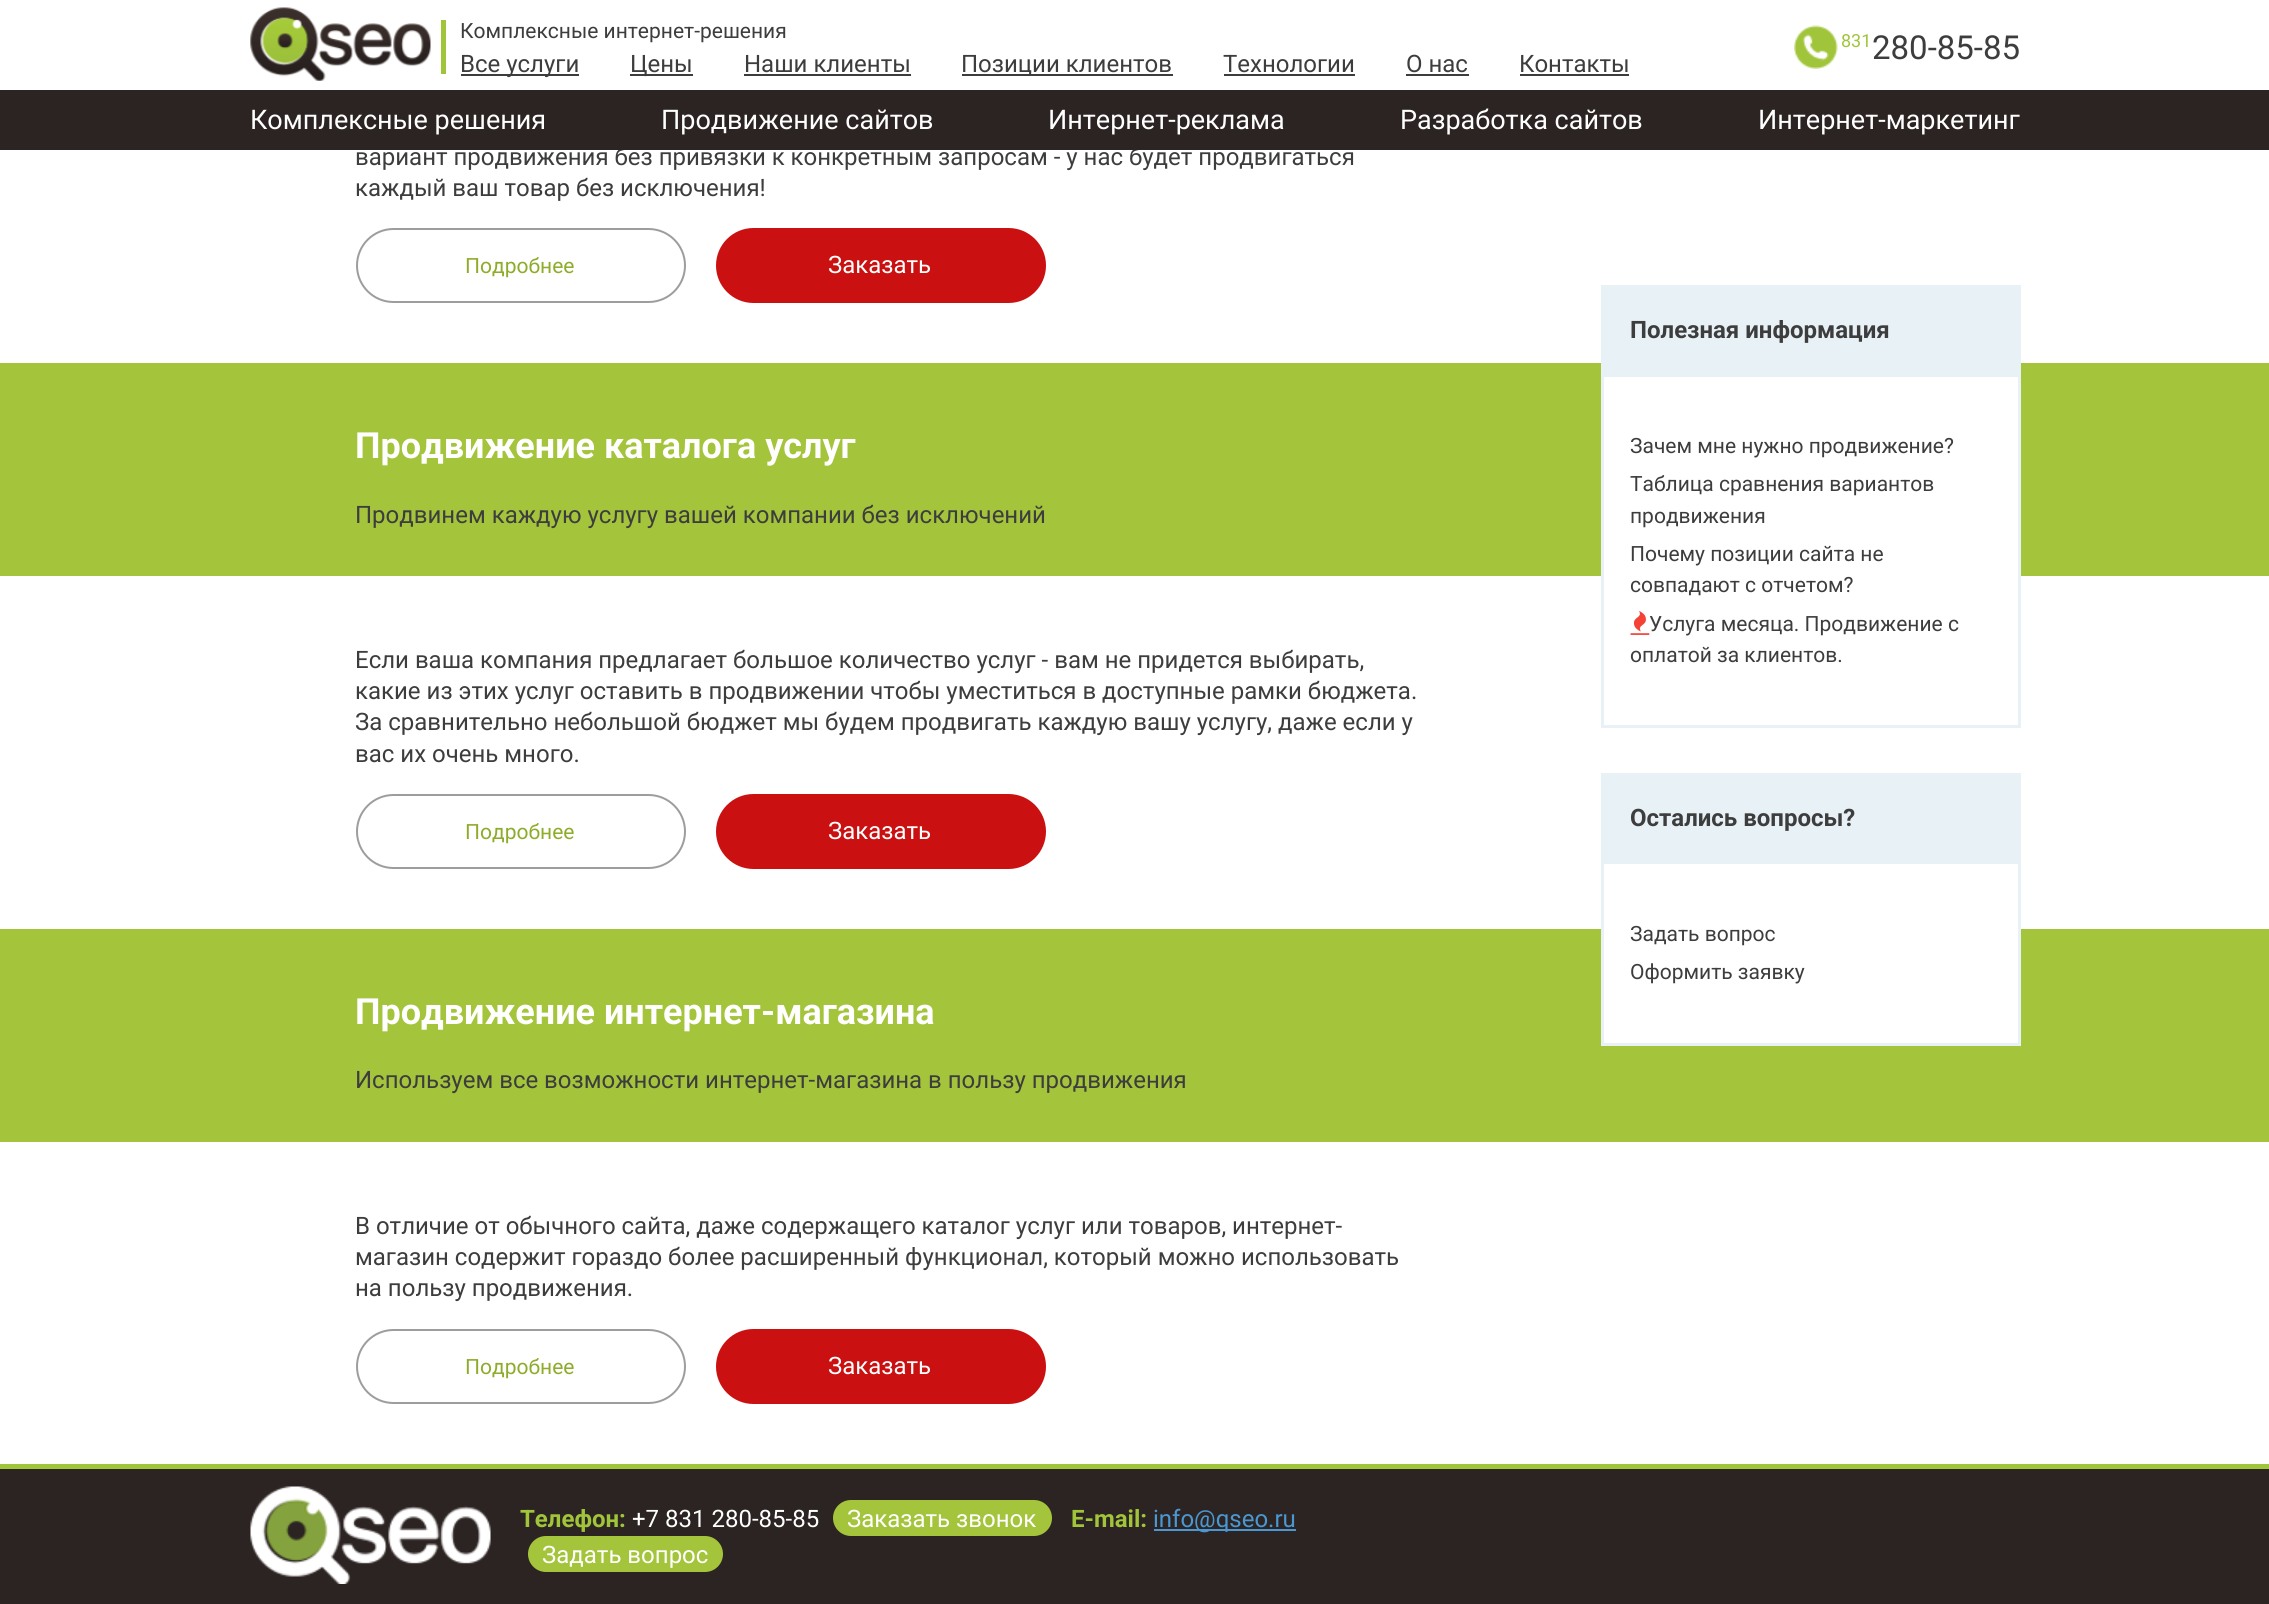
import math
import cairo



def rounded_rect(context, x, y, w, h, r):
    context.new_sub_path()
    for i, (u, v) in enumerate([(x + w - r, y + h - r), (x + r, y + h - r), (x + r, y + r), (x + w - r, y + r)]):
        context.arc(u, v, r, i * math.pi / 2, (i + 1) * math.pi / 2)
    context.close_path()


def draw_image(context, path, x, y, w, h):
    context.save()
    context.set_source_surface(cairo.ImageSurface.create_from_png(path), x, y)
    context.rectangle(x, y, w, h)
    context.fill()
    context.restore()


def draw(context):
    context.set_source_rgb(1, 1, 1)
    context.paint()
    draw_image(context, "images/1.png", 250, 7, 181, 74)
    context.set_source_rgb(160 / 255, 197 / 255, 58 / 255)
    context.rectangle(441, 20, 5, 54)
    context.fill()
    draw_image(context, "images/2.png", 1794, 25, 44, 44)
    context.set_source_rgb(61 / 255, 61 / 255, 61 / 255)
    context.rectangle(461, 74, 118, 2)
    context.fill()
    context.rectangle(630, 74, 63, 2)
    context.fill()
    context.rectangle(744, 74, 167, 2)
    context.fill()
    context.rectangle(962, 74, 211, 2)
    context.fill()
    context.rectangle(1224, 74, 131, 2)
    context.fill()
    context.rectangle(1406, 74, 63, 2)
    context.fill()
    context.rectangle(1520, 74, 109, 2)
    context.fill()
    rounded_rect(context, 357, 229, 328, 73, 36.5)
    context.set_source_rgb(157 / 255, 157 / 255, 157 / 255)
    context.stroke()
    context.set_source_rgb(202 / 255, 16 / 255, 16 / 255)
    rounded_rect(context, 716, 228, 330, 75, 37.5)
    context.fill()
    context.set_source_rgb(164 / 255, 196 / 255, 59 / 255)
    context.rectangle(0, 363, 2269, 213)
    context.fill()
    rounded_rect(context, 357, 795, 328, 73, 36.5)
    context.set_source_rgb(157 / 255, 157 / 255, 157 / 255)
    context.stroke()
    context.set_source_rgb(202 / 255, 16 / 255, 16 / 255)
    rounded_rect(context, 716, 794, 330, 75, 37.5)
    context.fill()
    context.set_source_rgb(164 / 255, 196 / 255, 59 / 255)
    context.rectangle(0, 929, 2269, 213)
    context.fill()
    rounded_rect(context, 357, 1330, 328, 73, 36.5)
    context.set_source_rgb(157 / 255, 157 / 255, 157 / 255)
    context.stroke()
    context.set_source_rgb(202 / 255, 16 / 255, 16 / 255)
    rounded_rect(context, 716, 1329, 330, 75, 37.5)
    context.fill()
    context.set_source_rgb(232 / 255, 241 / 255, 246 / 255)
    context.rectangle(1601, 285, 420, 92)
    context.fill()
    context.set_source_rgb(1, 1, 1)
    context.rectangle(1604, 377, 414, 199)
    context.fill()
    context.set_source_rgb(232 / 255, 241 / 255, 246 / 255)
    context.rectangle(2018, 377, 3, 351)
    context.fill()
    context.rectangle(1601, 725, 420, 3)
    context.fill()
    context.rectangle(1601, 377, 3, 351)
    context.fill()
    draw_image(context, "images/3.png", 1630, 611, 20, 24)
    context.rectangle(1601, 773, 420, 91)
    context.fill()
    context.set_source_rgb(1, 1, 1)
    context.rectangle(1604, 929, 414, 114)
    context.fill()
    context.set_source_rgb(232 / 255, 241 / 255, 246 / 255)
    context.rectangle(2018, 864, 3, 182)
    context.fill()
    context.rectangle(1601, 1043, 420, 3)
    context.fill()
    context.rectangle(1601, 864, 3, 182)
    context.fill()
    context.set_source_rgb(44 / 255, 36 / 255, 34 / 255)
    context.rectangle(0, 1469, 2269, 135)
    context.fill()
    context.set_source_rgb(160 / 255, 197 / 255, 58 / 255)
    context.rectangle(0, 1464, 2269, 5)
    context.fill()
    draw_image(context, "images/4.png", 250, 1486, 241, 98)
    context.set_source_rgb(164 / 255, 196 / 255, 59 / 255)
    rounded_rect(context, 833, 1500, 219, 36, 18)
    context.fill()
    context.set_source_rgb(74 / 255, 151 / 255, 209 / 255)
    context.rectangle(1154, 1529, 142, 2)
    context.fill()
    context.set_source_rgb(164 / 255, 196 / 255, 59 / 255)
    rounded_rect(context, 528, 1536, 195, 36, 18)
    context.fill()
    context.select_font_face("Roboto")
    context.set_font_size(21)
    context.set_source_rgb(61 / 255, 61 / 255, 61 / 255)
    context.move_to(460, 38)
    context.show_text("Комплексные интернет-решения")
    context.set_font_size(18)
    context.set_source_rgb(160 / 255, 197 / 255, 58 / 255)
    context.move_to(1841, 47)
    context.show_text("831")
    context.set_font_size(33)
    context.set_source_rgb(61 / 255, 61 / 255, 61 / 255)
    context.move_to(1872, 59)
    context.show_text("280-85-85")
    context.set_font_size(24)
    context.move_to(460, 72)
    context.show_text("Все услуги")
    context.move_to(630, 72)
    context.show_text("Цены")
    context.move_to(744, 72)
    context.show_text("Наши клиенты")
    context.move_to(961, 72)
    context.show_text("Позиции клиентов")
    context.move_to(1223, 72)
    context.show_text("Технологии")
    context.move_to(1406, 72)
    context.show_text("О нас")
    context.move_to(1519, 72)
    context.show_text("Контакты")
    context.move_to(355, 165)
    context.show_text("вариант продвижения без привязки к конкретным запросам - у нас будет продвигаться")
    context.set_source_rgb(44 / 255, 36 / 255, 34 / 255)
    context.rectangle(0, 90, 2269, 60)
    context.fill()
    context.set_font_size(27)
    context.set_source_rgb(1, 1, 1)
    context.move_to(1758, 129)
    context.show_text("Интернет-маркетинг")
    context.move_to(1400, 129)
    context.show_text("Разработка сайтов")
    context.move_to(1048, 129)
    context.show_text("Интернет-реклама")
    context.move_to(661, 129)
    context.show_text("Продвижение сайтов")
    context.move_to(250, 129)
    context.show_text("Комплексные решения")
    context.set_font_size(24)
    context.set_source_rgb(61 / 255, 61 / 255, 61 / 255)
    context.move_to(355, 196)
    context.show_text("каждый ваш товар без исключения!")
    context.set_font_size(21)
    context.set_source_rgb(142 / 255, 172 / 255, 42 / 255)
    context.move_to(465, 273)
    context.show_text("Подробнее")
    context.set_font_size(24)
    context.set_source_rgb(1, 1, 1)
    context.move_to(828, 273)
    context.show_text("Заказать")
    context.select_font_face("Roboto", cairo.FontSlant.NORMAL, cairo.FontWeight.BOLD)
    context.set_font_size(36)
    context.move_to(355, 458)
    context.show_text("Продвижение каталога услуг")
    context.select_font_face("Roboto")
    context.set_font_size(24)
    context.set_source_rgb(61 / 255, 61 / 255, 61 / 255)
    context.move_to(355, 523)
    context.show_text("Продвинем каждую услугу вашей компании без исключений")
    context.move_to(355, 668)
    context.show_text("Если ваша компания предлагает большое количество услуг - вам не придется выбирать,")
    context.move_to(355, 699)
    context.show_text("какие из этих услуг оставить в продвижении чтобы уместиться в доступные рамки бюджета.")
    context.move_to(355, 730)
    context.show_text("За сравнительно небольшой бюджет мы будем продвигать каждую вашу услугу, даже если у")
    context.move_to(355, 762)
    context.show_text("вас их очень много.")
    context.set_font_size(21)
    context.set_source_rgb(142 / 255, 172 / 255, 42 / 255)
    context.move_to(465, 839)
    context.show_text("Подробнее")
    context.set_font_size(24)
    context.set_source_rgb(1, 1, 1)
    context.move_to(828, 839)
    context.show_text("Заказать")
    context.select_font_face("Roboto", cairo.FontSlant.NORMAL, cairo.FontWeight.BOLD)
    context.set_font_size(36)
    context.move_to(355, 1024)
    context.show_text("Продвижение интернет-магазина")
    context.select_font_face("Roboto")
    context.set_font_size(24)
    context.set_source_rgb(61 / 255, 61 / 255, 61 / 255)
    context.move_to(355, 1088)
    context.show_text("Используем все возможности интернет-магазина в пользу продвижения")
    context.move_to(355, 1234)
    context.show_text("В отличие от обычного сайта, даже содержащего каталог услуг или товаров, интернет-")
    context.move_to(355, 1265)
    context.show_text("магазин содержит гораздо более расширенный функционал, который можно использовать")
    context.move_to(355, 1296)
    context.show_text("на пользу продвижения.")
    context.set_font_size(21)
    context.set_source_rgb(142 / 255, 172 / 255, 42 / 255)
    context.move_to(465, 1374)
    context.show_text("Подробнее")
    context.set_font_size(24)
    context.set_source_rgb(1, 1, 1)
    context.move_to(828, 1374)
    context.show_text("Заказать")
    context.select_font_face("Roboto", cairo.FontSlant.NORMAL, cairo.FontWeight.BOLD)
    context.set_source_rgb(61 / 255, 61 / 255, 61 / 255)
    context.move_to(1630, 338)
    context.show_text("Полезная информация")
    context.select_font_face("Roboto")
    context.set_font_size(21)
    context.move_to(1630, 453)
    context.show_text("Зачем мне нужно продвижение?")
    context.move_to(1630, 491)
    context.show_text("Таблица сравнения вариантов")
    context.move_to(1630, 523)
    context.show_text("продвижения")
    context.move_to(1630, 561)
    context.show_text("Почему позиции сайта не")
    context.move_to(1630, 592)
    context.show_text("совпадают с отчетом?")
    context.move_to(1649, 631)
    context.show_text("Услуга месяца. Продвижение с")
    context.move_to(1630, 662)
    context.show_text("оплатой за клиентов.")
    context.select_font_face("Roboto", cairo.FontSlant.NORMAL, cairo.FontWeight.BOLD)
    context.set_font_size(24)
    context.move_to(1630, 826)
    context.show_text("Остались вопросы?")
    context.select_font_face("Roboto")
    context.set_font_size(21)
    context.move_to(1630, 941)
    context.show_text("Задать вопрос")
    context.move_to(1630, 979)
    context.show_text("Оформить заявку")
    context.select_font_face("Roboto", cairo.FontSlant.NORMAL, cairo.FontWeight.BOLD)
    context.set_font_size(24)
    context.set_source_rgb(160 / 255, 197 / 255, 58 / 255)
    context.move_to(520, 1527)
    context.show_text("Телефон:")
    context.select_font_face("Roboto")
    context.set_source_rgb(1, 1, 1)
    context.move_to(632, 1527)
    context.show_text("+7 831 280-85-85")
    context.move_to(847, 1527)
    context.show_text("Заказать звонок")
    context.select_font_face("Roboto", cairo.FontSlant.NORMAL, cairo.FontWeight.BOLD)
    context.set_source_rgb(160 / 255, 197 / 255, 58 / 255)
    context.move_to(1071, 1527)
    context.show_text("E-mail:")
    context.select_font_face("Roboto")
    context.set_source_rgb(74 / 255, 151 / 255, 209 / 255)
    context.move_to(1153, 1527)
    context.show_text("info@qseo.ru")
    context.set_source_rgb(1, 1, 1)
    context.move_to(542, 1563)
    context.show_text("Задать вопрос")


surface = cairo.ImageSurface(cairo.Format.RGB24, 2269, 1604)
context = cairo.Context(surface)
options = cairo.FontOptions()
options.set_hint_metrics(cairo.HintMetrics.OFF)
options.set_hint_style(cairo.HintStyle.NONE)
context.set_font_options(options)
context.set_miter_limit(4)
draw(context)
surface.write_to_png("out.png")
